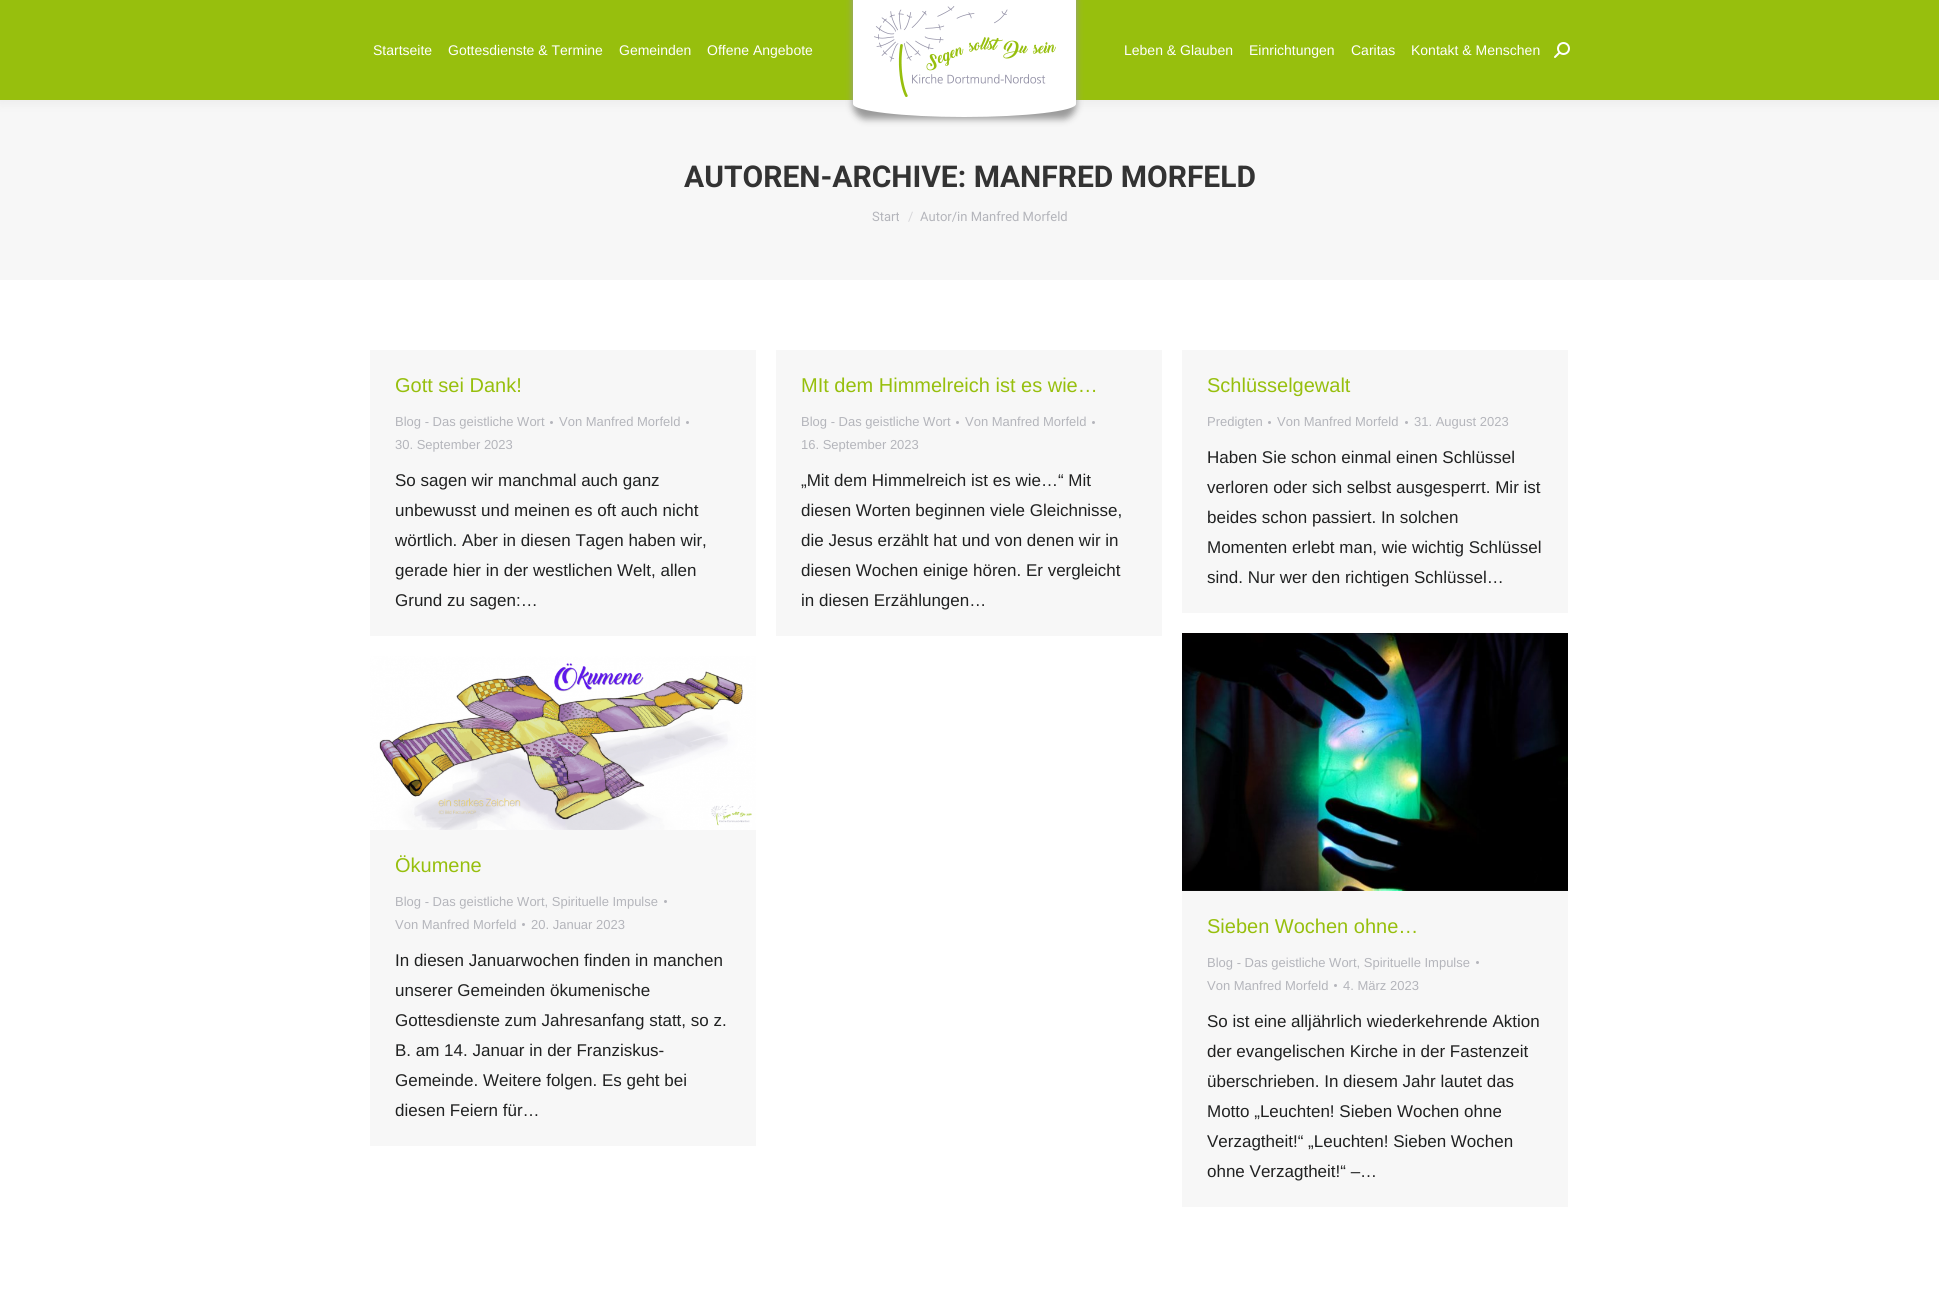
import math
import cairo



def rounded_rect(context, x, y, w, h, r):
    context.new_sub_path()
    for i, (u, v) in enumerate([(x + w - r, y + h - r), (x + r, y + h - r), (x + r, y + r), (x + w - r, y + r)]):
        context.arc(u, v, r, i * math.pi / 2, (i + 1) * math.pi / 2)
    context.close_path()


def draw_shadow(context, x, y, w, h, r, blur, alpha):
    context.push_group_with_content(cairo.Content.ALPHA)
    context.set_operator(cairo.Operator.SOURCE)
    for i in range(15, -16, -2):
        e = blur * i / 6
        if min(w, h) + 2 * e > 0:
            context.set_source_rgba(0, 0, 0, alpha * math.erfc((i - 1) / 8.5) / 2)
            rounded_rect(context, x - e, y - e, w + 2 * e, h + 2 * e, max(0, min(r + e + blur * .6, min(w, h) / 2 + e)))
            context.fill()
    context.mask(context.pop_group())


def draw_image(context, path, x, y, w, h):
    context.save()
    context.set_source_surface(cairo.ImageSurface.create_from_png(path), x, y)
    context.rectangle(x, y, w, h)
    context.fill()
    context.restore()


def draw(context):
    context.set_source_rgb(1, 1, 1)
    context.paint()
    context.set_source_rgb(247 / 255, 247 / 255, 247 / 255)
    context.rectangle(0, 100, 1939, 180)
    context.fill()
    context.set_source_rgb(0, 0, 0)
    draw_shadow(context, -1, -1, 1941, 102, 0, 7.5, 0.07)
    context.set_source_rgb(151 / 255, 191 / 255, 13 / 255)
    context.rectangle(0, 0, 1939, 100)
    context.fill()
    context.set_source_rgb(153 / 255, 153 / 255, 153 / 255)
    draw_shadow(context, 853, -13, 223, 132, 13, 3.5, 1)
    context.set_source_rgb(1, 1, 1)
    context.new_path()
    context.move_to(964, -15)
    context.curve_to(1026, -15, 1076, -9, 1076, -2)
    context.line_to(1076, 104)
    context.curve_to(1076, 111, 1026, 117, 964, 117)
    context.curve_to(903, 117, 853, 111, 853, 104)
    context.line_to(853, -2)
    context.curve_to(853, -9, 903, -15, 964, -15)
    context.close_path()
    context.fill()
    draw_image(context, "images/1.png", 874, 6, 182, 91)
    draw_image(context, "images/2.png", 1554, 42, 16, 16)
    context.set_source_rgb(247 / 255, 247 / 255, 247 / 255)
    context.rectangle(370, 350, 386, 286)
    context.fill()
    context.set_source_rgb(180 / 255, 181 / 255, 187 / 255)
    context.arc(551.5, 422.5, 1.5, 0, 2 * math.pi)
    context.fill()
    context.arc(687.5, 422.5, 1.5, 0, 2 * math.pi)
    context.fill()
    context.set_source_rgb(247 / 255, 247 / 255, 247 / 255)
    context.rectangle(776, 350, 386, 286)
    context.fill()
    context.set_source_rgb(180 / 255, 181 / 255, 187 / 255)
    context.arc(957.5, 422.5, 1.5, 0, 2 * math.pi)
    context.fill()
    context.arc(1093.5, 422.5, 1.5, 0, 2 * math.pi)
    context.fill()
    context.set_source_rgb(247 / 255, 247 / 255, 247 / 255)
    context.rectangle(1182, 350, 386, 263)
    context.fill()
    context.set_source_rgb(180 / 255, 181 / 255, 187 / 255)
    context.arc(1269.5, 422.5, 1.5, 0, 2 * math.pi)
    context.fill()
    context.arc(1406.5, 422.5, 1.5, 0, 2 * math.pi)
    context.fill()
    context.set_source_rgb(247 / 255, 247 / 255, 247 / 255)
    context.rectangle(370, 830, 386, 316)
    context.fill()
    draw_image(context, "images/3.png", 370, 656, 386, 174)
    context.set_source_rgb(180 / 255, 181 / 255, 187 / 255)
    context.arc(665.5, 901.5, 1.5, 0, 2 * math.pi)
    context.fill()
    context.arc(523.5, 924.5, 1.5, 0, 2 * math.pi)
    context.fill()
    context.set_source_rgb(247 / 255, 247 / 255, 247 / 255)
    context.rectangle(1182, 890, 386, 317)
    context.fill()
    draw_image(context, "images/4.png", 1182, 633, 386, 258)
    context.set_source_rgb(180 / 255, 181 / 255, 187 / 255)
    context.arc(1477.5, 962.5, 1.5, 0, 2 * math.pi)
    context.fill()
    context.arc(1335.5, 985.5, 1.5, 0, 2 * math.pi)
    context.fill()
    context.select_font_face("Liberation Sans")
    context.set_font_size(14)
    context.set_source_rgb(1, 1, 1)
    context.move_to(373, 55)
    context.show_text("Startseite")
    context.move_to(448, 55)
    context.show_text("Gottesdienste & Termine")
    context.move_to(619, 55)
    context.show_text("Gemeinden")
    context.move_to(707, 55)
    context.show_text("Offene Angebote")
    context.move_to(1124, 55)
    context.show_text("Leben & Glauben")
    context.move_to(1249, 55)
    context.show_text("Einrichtungen")
    context.move_to(1351, 55)
    context.show_text("Caritas")
    context.move_to(1411, 55)
    context.show_text("Kontakt & Menschen")
    context.select_font_face("Roboto", cairo.FontSlant.NORMAL, cairo.FontWeight.BOLD)
    context.set_font_size(30)
    context.set_source_rgb(51 / 255, 51 / 255, 51 / 255)
    context.move_to(684, 187)
    context.show_text("AUTOREN-ARCHIVE: MANFRED MORFELD")
    context.select_font_face("Roboto")
    context.set_font_size(13)
    context.set_source_rgb(180 / 255, 181 / 255, 187 / 255)
    context.move_to(872, 221)
    context.show_text("Start")
    context.set_source_rgb(214 / 255, 214 / 255, 217 / 255)
    context.move_to(908, 221)
    context.show_text("/")
    context.set_source_rgb(180 / 255, 181 / 255, 187 / 255)
    context.move_to(920, 221)
    context.show_text("Autor/in Manfred Morfeld")
    context.select_font_face("Liberation Sans")
    context.set_font_size(20)
    context.set_source_rgb(151 / 255, 191 / 255, 13 / 255)
    context.move_to(395, 392)
    context.show_text("Gott sei Dank!")
    context.set_font_size(13)
    context.set_source_rgb(180 / 255, 181 / 255, 187 / 255)
    context.move_to(395, 426)
    context.show_text("Blog - Das geistliche Wort")
    context.move_to(559, 426)
    context.show_text("Von Manfred Morfeld")
    context.move_to(395, 449)
    context.show_text("30. September 2023")
    context.set_font_size(17)
    context.set_source_rgb(32 / 255, 33 / 255, 33 / 255)
    context.move_to(395, 486)
    context.show_text("So sagen wir manchmal auch ganz")
    context.move_to(395, 516)
    context.show_text("unbewusst und meinen es oft auch nicht")
    context.move_to(395, 546)
    context.show_text("wörtlich. Aber in diesen Tagen haben wir,")
    context.move_to(395, 576)
    context.show_text("gerade hier in der westlichen Welt, allen")
    context.move_to(395, 606)
    context.show_text("Grund zu sagen:…")
    context.set_font_size(20)
    context.set_source_rgb(151 / 255, 191 / 255, 13 / 255)
    context.move_to(801, 392)
    context.show_text("MIt dem Himmelreich ist es wie…")
    context.set_font_size(13)
    context.set_source_rgb(180 / 255, 181 / 255, 187 / 255)
    context.move_to(801, 426)
    context.show_text("Blog - Das geistliche Wort")
    context.move_to(965, 426)
    context.show_text("Von Manfred Morfeld")
    context.move_to(801, 449)
    context.show_text("16. September 2023")
    context.set_font_size(17)
    context.set_source_rgb(32 / 255, 33 / 255, 33 / 255)
    context.move_to(801, 486)
    context.show_text("„Mit dem Himmelreich ist es wie…“ Mit")
    context.move_to(801, 516)
    context.show_text("diesen Worten beginnen viele Gleichnisse,")
    context.move_to(801, 546)
    context.show_text("die Jesus erzählt hat und von denen wir in")
    context.move_to(801, 576)
    context.show_text("diesen Wochen einige hören. Er vergleicht")
    context.move_to(801, 606)
    context.show_text("in diesen Erzählungen…")
    context.set_font_size(20)
    context.set_source_rgb(151 / 255, 191 / 255, 13 / 255)
    context.move_to(1207, 392)
    context.show_text("Schlüsselgewalt")
    context.set_font_size(13)
    context.set_source_rgb(180 / 255, 181 / 255, 187 / 255)
    context.move_to(1207, 426)
    context.show_text("Predigten")
    context.move_to(1277, 426)
    context.show_text("Von Manfred Morfeld")
    context.move_to(1414, 426)
    context.show_text("31. August 2023")
    context.set_font_size(17)
    context.set_source_rgb(32 / 255, 33 / 255, 33 / 255)
    context.move_to(1207, 463)
    context.show_text("Haben Sie schon einmal einen Schlüssel")
    context.move_to(1207, 493)
    context.show_text("verloren oder sich selbst ausgesperrt. Mir ist")
    context.move_to(1207, 523)
    context.show_text("beides schon passiert. In solchen")
    context.move_to(1207, 553)
    context.show_text("Momenten erlebt man, wie wichtig Schlüssel")
    context.move_to(1207, 583)
    context.show_text("sind. Nur wer den richtigen Schlüssel…")
    context.set_font_size(20)
    context.set_source_rgb(151 / 255, 191 / 255, 13 / 255)
    context.move_to(395, 872)
    context.show_text("Ökumene")
    context.set_font_size(13)
    context.set_source_rgb(180 / 255, 181 / 255, 187 / 255)
    context.move_to(395, 906)
    context.show_text("Blog - Das geistliche Wort, Spirituelle Impulse")
    context.move_to(395, 929)
    context.show_text("Von Manfred Morfeld")
    context.move_to(531, 929)
    context.show_text("20. Januar 2023")
    context.set_font_size(17)
    context.set_source_rgb(32 / 255, 33 / 255, 33 / 255)
    context.move_to(395, 966)
    context.show_text("In diesen Januarwochen finden in manchen")
    context.move_to(395, 996)
    context.show_text("unserer Gemeinden ökumenische")
    context.move_to(395, 1026)
    context.show_text("Gottesdienste zum Jahresanfang statt, so z.")
    context.move_to(395, 1056)
    context.show_text("B. am 14. Januar in der Franziskus-")
    context.move_to(395, 1086)
    context.show_text("Gemeinde. Weitere folgen. Es geht bei")
    context.move_to(395, 1116)
    context.show_text("diesen Feiern für…")
    context.set_font_size(20)
    context.set_source_rgb(151 / 255, 191 / 255, 13 / 255)
    context.move_to(1207, 933)
    context.show_text("Sieben Wochen ohne…")
    context.set_font_size(13)
    context.set_source_rgb(180 / 255, 181 / 255, 187 / 255)
    context.move_to(1207, 967)
    context.show_text("Blog - Das geistliche Wort, Spirituelle Impulse")
    context.move_to(1207, 990)
    context.show_text("Von Manfred Morfeld")
    context.move_to(1343, 990)
    context.show_text("4. März 2023")
    context.set_font_size(17)
    context.set_source_rgb(32 / 255, 33 / 255, 33 / 255)
    context.move_to(1207, 1027)
    context.show_text("So ist eine alljährlich wiederkehrende Aktion")
    context.move_to(1207, 1057)
    context.show_text("der evangelischen Kirche in der Fastenzeit")
    context.move_to(1207, 1087)
    context.show_text("überschrieben. In diesem Jahr lautet das")
    context.move_to(1207, 1117)
    context.show_text("Motto „Leuchten! Sieben Wochen ohne")
    context.move_to(1207, 1147)
    context.show_text("Verzagtheit!“ „Leuchten! Sieben Wochen")
    context.move_to(1207, 1177)
    context.show_text("ohne Verzagtheit!“ –…")


surface = cairo.ImageSurface(cairo.Format.RGB24, 1939, 1299)
context = cairo.Context(surface)
options = cairo.FontOptions()
options.set_hint_metrics(cairo.HintMetrics.OFF)
options.set_hint_style(cairo.HintStyle.NONE)
context.set_font_options(options)
context.set_miter_limit(4)
draw(context)
surface.write_to_png("out.png")
